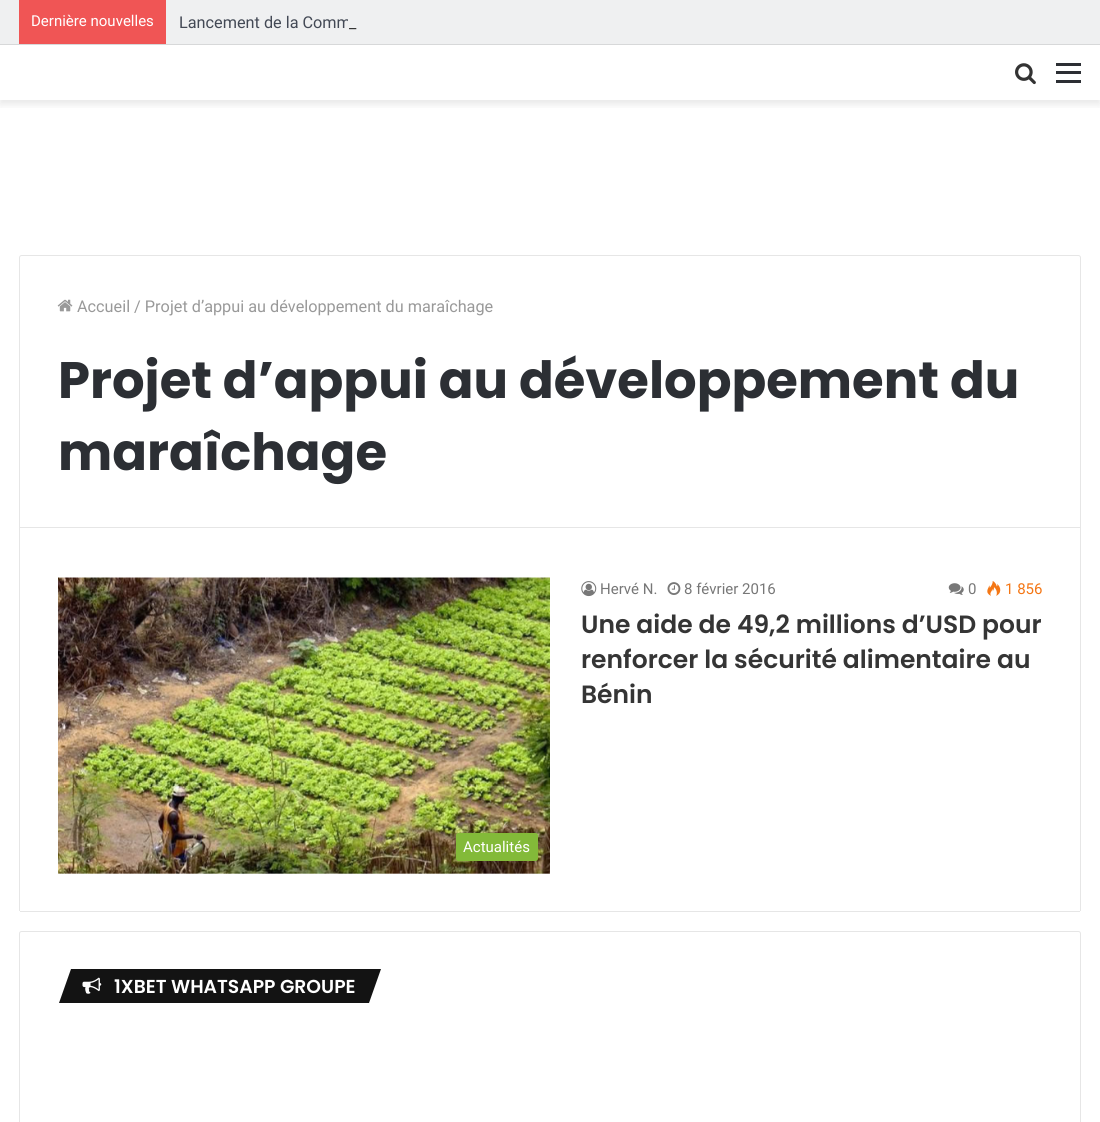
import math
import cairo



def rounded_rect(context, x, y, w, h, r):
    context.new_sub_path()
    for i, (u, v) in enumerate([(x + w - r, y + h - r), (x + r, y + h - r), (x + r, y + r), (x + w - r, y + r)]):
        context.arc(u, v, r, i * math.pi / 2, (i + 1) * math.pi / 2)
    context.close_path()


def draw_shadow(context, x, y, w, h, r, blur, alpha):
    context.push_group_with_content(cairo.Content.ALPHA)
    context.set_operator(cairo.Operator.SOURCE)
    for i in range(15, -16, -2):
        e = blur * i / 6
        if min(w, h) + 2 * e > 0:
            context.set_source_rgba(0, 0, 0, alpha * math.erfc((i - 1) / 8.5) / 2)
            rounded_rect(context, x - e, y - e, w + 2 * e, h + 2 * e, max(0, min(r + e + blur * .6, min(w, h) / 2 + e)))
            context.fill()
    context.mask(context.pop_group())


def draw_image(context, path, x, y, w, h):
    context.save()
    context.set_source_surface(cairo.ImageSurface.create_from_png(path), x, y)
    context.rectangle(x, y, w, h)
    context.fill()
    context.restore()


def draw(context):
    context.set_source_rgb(1, 1, 1)
    context.paint()
    context.save()
    context.rectangle(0, 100, 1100, 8)
    context.clip()
    context.set_source_rgb(0, 0, 0)
    draw_shadow(context, 0, 49, 1100, 55, 0, 4.5, 0.1)
    context.restore()
    context.set_source_rgb(239 / 255, 240 / 255, 241 / 255)
    context.rectangle(0, 0, 1100, 44)
    context.fill()
    context.set_source_rgb(215 / 255, 216 / 255, 217 / 255)
    context.rectangle(0, 44, 1100, 1)
    context.fill()
    context.set_source_rgb(240 / 255, 85 / 255, 85 / 255)
    context.rectangle(19, 0, 147, 44)
    context.fill()
    draw_image(context, "images/1.png", 1015, 63, 21, 22)
    context.set_source_rgb(44 / 255, 47 / 255, 52 / 255)
    context.rectangle(1056, 71, 25, 3)
    context.fill()
    context.rectangle(1056, 63, 25, 3)
    context.fill()
    context.rectangle(1056, 80, 25, 3)
    context.fill()
    context.new_path()
    context.move_to(21.5, 255.5)
    context.line_to(1078.5, 255.5)
    context.curve_to(1079.5, 255.5, 1080.5, 256.5, 1080.5, 257.5)
    context.line_to(1080.5, 527.5)
    context.line_to(19.5, 527.5)
    context.line_to(19.5, 257.5)
    context.curve_to(19.5, 256.5, 20.5, 255.5, 21.5, 255.5)
    context.close_path()
    context.set_source_rgb(230 / 255, 230 / 255, 230 / 255)
    context.set_line_width(1)
    context.stroke()
    draw_image(context, "images/2.png", 57, 299, 16, 13)
    context.rectangle(1080, 528, 1, 383)
    context.fill()
    context.rectangle(20, 911, 1060, 1)
    context.fill()
    context.rectangle(19, 528, 1, 383)
    context.fill()
    draw_image(context, "images/3.png", 581, 581, 16, 16)
    draw_image(context, "images/4.png", 667, 582, 14, 13)
    draw_image(context, "images/5.png", 948, 583, 16, 12)
    draw_image(context, "images/6.png", 987, 581, 14, 15)
    draw_image(context, "images/7.png", 58, 577, 492, 297)
    context.set_source_rgb(131 / 255, 186 / 255, 57 / 255)
    rounded_rect(context, 456, 833, 82, 28, 2.5)
    context.fill()
    rounded_rect(context, 19.5, 931.5, 1061, 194, 2)
    context.set_source_rgb(230 / 255, 230 / 255, 230 / 255)
    context.stroke()
    context.set_source_rgb(19 / 255, 19 / 255, 19 / 255)
    context.new_path()
    context.move_to(71, 969)
    context.line_to(381, 969)
    context.line_to(369, 1003)
    context.line_to(59, 1003)
    context.close_path()
    context.fill()
    draw_image(context, "images/8.png", 82, 977, 20, 17)
    context.select_font_face("Roboto")
    context.set_font_size(15)
    context.set_source_rgb(1, 1, 1)
    context.move_to(31, 26)
    context.show_text("Dernière nouvelles")
    context.set_font_size(16.25)
    context.set_source_rgb(67 / 255, 73 / 255, 85 / 255)
    context.move_to(179, 28)
    context.show_text("Lancement de la Comm")
    context.set_source_rgb(239 / 255, 240 / 255, 241 / 255)
    context.rectangle(348, 19, 2, 9)
    context.fill()
    context.set_source_rgb(53 / 255, 53 / 255, 53 / 255)
    context.move_to(349, 28)
    context.show_text("_")
    context.set_source_rgb(153 / 255, 153 / 255, 153 / 255)
    context.move_to(77, 312)
    context.show_text("Accueil / Projet d’appui au développement du maraîchage")
    context.select_font_face("Poppins", cairo.FontSlant.NORMAL, cairo.FontWeight.BOLD)
    context.set_font_size(51.25)
    context.set_source_rgb(44 / 255, 47 / 255, 52 / 255)
    context.move_to(58, 398)
    context.show_text("Projet d’appui au développement du")
    context.move_to(58, 470)
    context.show_text("maraîchage")
    context.select_font_face("Roboto")
    context.set_font_size(15)
    context.set_source_rgb(119 / 255, 119 / 255, 119 / 255)
    context.move_to(600, 594)
    context.show_text("Hervé N.")
    context.move_to(684, 594)
    context.show_text("8 février 2016")
    context.move_to(968, 594)
    context.show_text("0")
    context.set_source_rgb(244 / 255, 118 / 255, 20 / 255)
    context.move_to(1005, 594)
    context.show_text("1 856")
    context.select_font_face("Poppins SemiBold")
    context.set_font_size(25)
    context.set_source_rgb(53 / 255, 53 / 255, 53 / 255)
    context.move_to(581, 633)
    context.show_text("Une aide de 49,2 millions d’USD pour")
    context.move_to(581, 668)
    context.show_text("renforcer la sécurité alimentaire au")
    context.move_to(581, 703)
    context.show_text("Bénin")
    context.select_font_face("Roboto")
    context.set_font_size(15)
    context.set_source_rgb(1, 1, 1)
    context.move_to(463, 852)
    context.show_text("Actualités")
    context.select_font_face("Poppins SemiBold")
    context.set_font_size(18.75)
    context.move_to(114, 993)
    context.show_text("1XBET WHATSAPP GROUPE")


surface = cairo.ImageSurface(cairo.Format.RGB24, 1100, 1122)
context = cairo.Context(surface)
options = cairo.FontOptions()
options.set_hint_metrics(cairo.HintMetrics.OFF)
options.set_hint_style(cairo.HintStyle.NONE)
context.set_font_options(options)
context.set_miter_limit(4)
draw(context)
surface.write_to_png("out.png")
